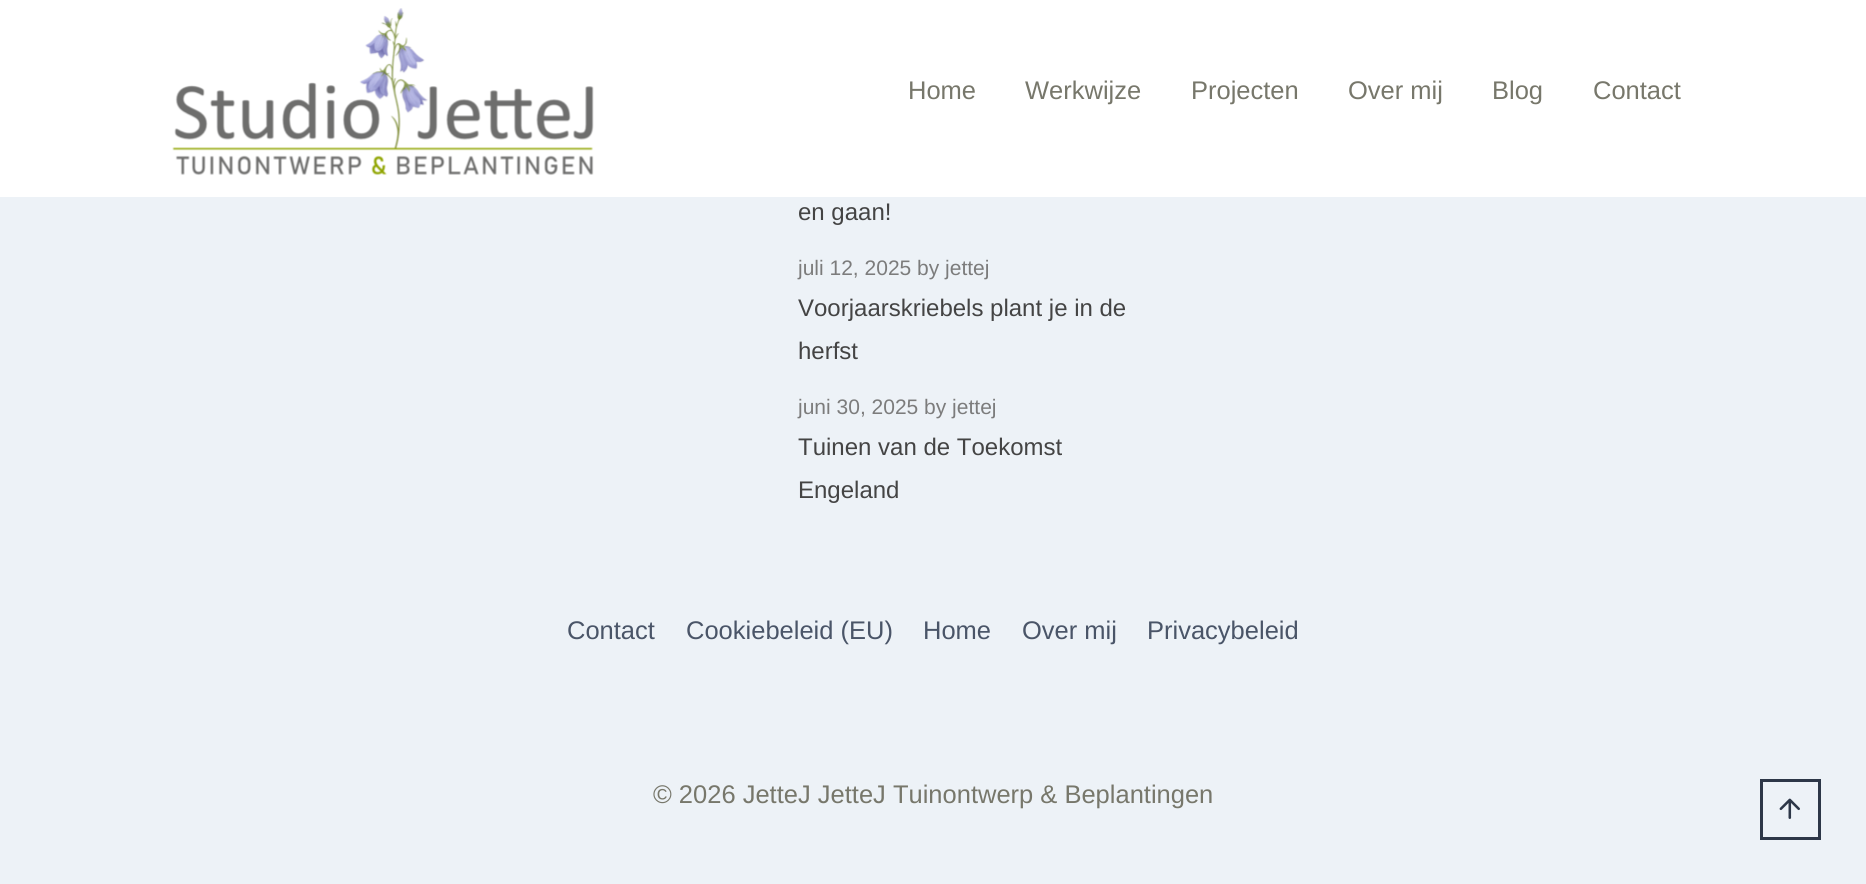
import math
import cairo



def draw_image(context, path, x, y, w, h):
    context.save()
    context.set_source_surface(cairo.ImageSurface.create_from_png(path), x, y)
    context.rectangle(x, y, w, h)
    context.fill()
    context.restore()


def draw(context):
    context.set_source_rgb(237 / 255, 242 / 255, 247 / 255)
    context.paint()
    context.set_source_rgb(1, 1, 1)
    context.rectangle(0, 0, 1866, 197)
    context.fill()
    draw_image(context, "images/1.png", 172, 8, 422, 168)
    context.rectangle(1761.5, 780.5, 58, 58)
    context.set_source_rgb(45 / 255, 55 / 255, 72 / 255)
    context.set_line_width(3)
    context.stroke()
    draw_image(context, "images/2.png", 1779, 798, 21, 21)
    context.select_font_face("Liberation Sans")
    context.set_font_size(25.5)
    context.set_source_rgb(119 / 255, 119 / 255, 107 / 255)
    context.move_to(908, 99)
    context.show_text("Home")
    context.move_to(1025, 99)
    context.show_text("Werkwijze")
    context.move_to(1191, 99)
    context.show_text("Projecten")
    context.move_to(1348, 99)
    context.show_text("Over mij")
    context.move_to(1492, 99)
    context.show_text("Blog")
    context.move_to(1593, 99)
    context.show_text("Contact")
    context.set_font_size(24)
    context.set_source_rgb(68 / 255, 68 / 255, 68 / 255)
    context.move_to(798, 220)
    context.show_text("en gaan!")
    context.set_font_size(21)
    context.set_source_rgb(124 / 255, 124 / 255, 124 / 255)
    context.move_to(798, 275)
    context.show_text("juli 12, 2025 by jettej")
    context.set_font_size(24)
    context.set_source_rgb(68 / 255, 68 / 255, 68 / 255)
    context.move_to(798, 316)
    context.show_text("Voorjaarskriebels plant je in de")
    context.move_to(798, 359)
    context.show_text("herfst")
    context.set_font_size(21)
    context.set_source_rgb(124 / 255, 124 / 255, 124 / 255)
    context.move_to(798, 414)
    context.show_text("juni 30, 2025 by jettej")
    context.set_font_size(24)
    context.set_source_rgb(68 / 255, 68 / 255, 68 / 255)
    context.move_to(798, 455)
    context.show_text("Tuinen van de Toekomst")
    context.move_to(798, 498)
    context.show_text("Engeland")
    context.set_font_size(25.5)
    context.set_source_rgb(74 / 255, 85 / 255, 104 / 255)
    context.move_to(567, 639)
    context.show_text("Contact")
    context.move_to(686, 639)
    context.show_text("Cookiebeleid (EU)")
    context.move_to(923, 639)
    context.show_text("Home")
    context.move_to(1022, 639)
    context.show_text("Over mij")
    context.move_to(1147, 639)
    context.show_text("Privacybeleid")
    context.set_source_rgb(119 / 255, 119 / 255, 107 / 255)
    context.move_to(653, 803)
    context.show_text("© 2026 JetteJ JetteJ Tuinontwerp & Beplantingen")


surface = cairo.ImageSurface(cairo.Format.RGB24, 1866, 884)
context = cairo.Context(surface)
options = cairo.FontOptions()
options.set_hint_metrics(cairo.HintMetrics.OFF)
options.set_hint_style(cairo.HintStyle.NONE)
context.set_font_options(options)
context.set_miter_limit(4)
draw(context)
surface.write_to_png("out.png")
